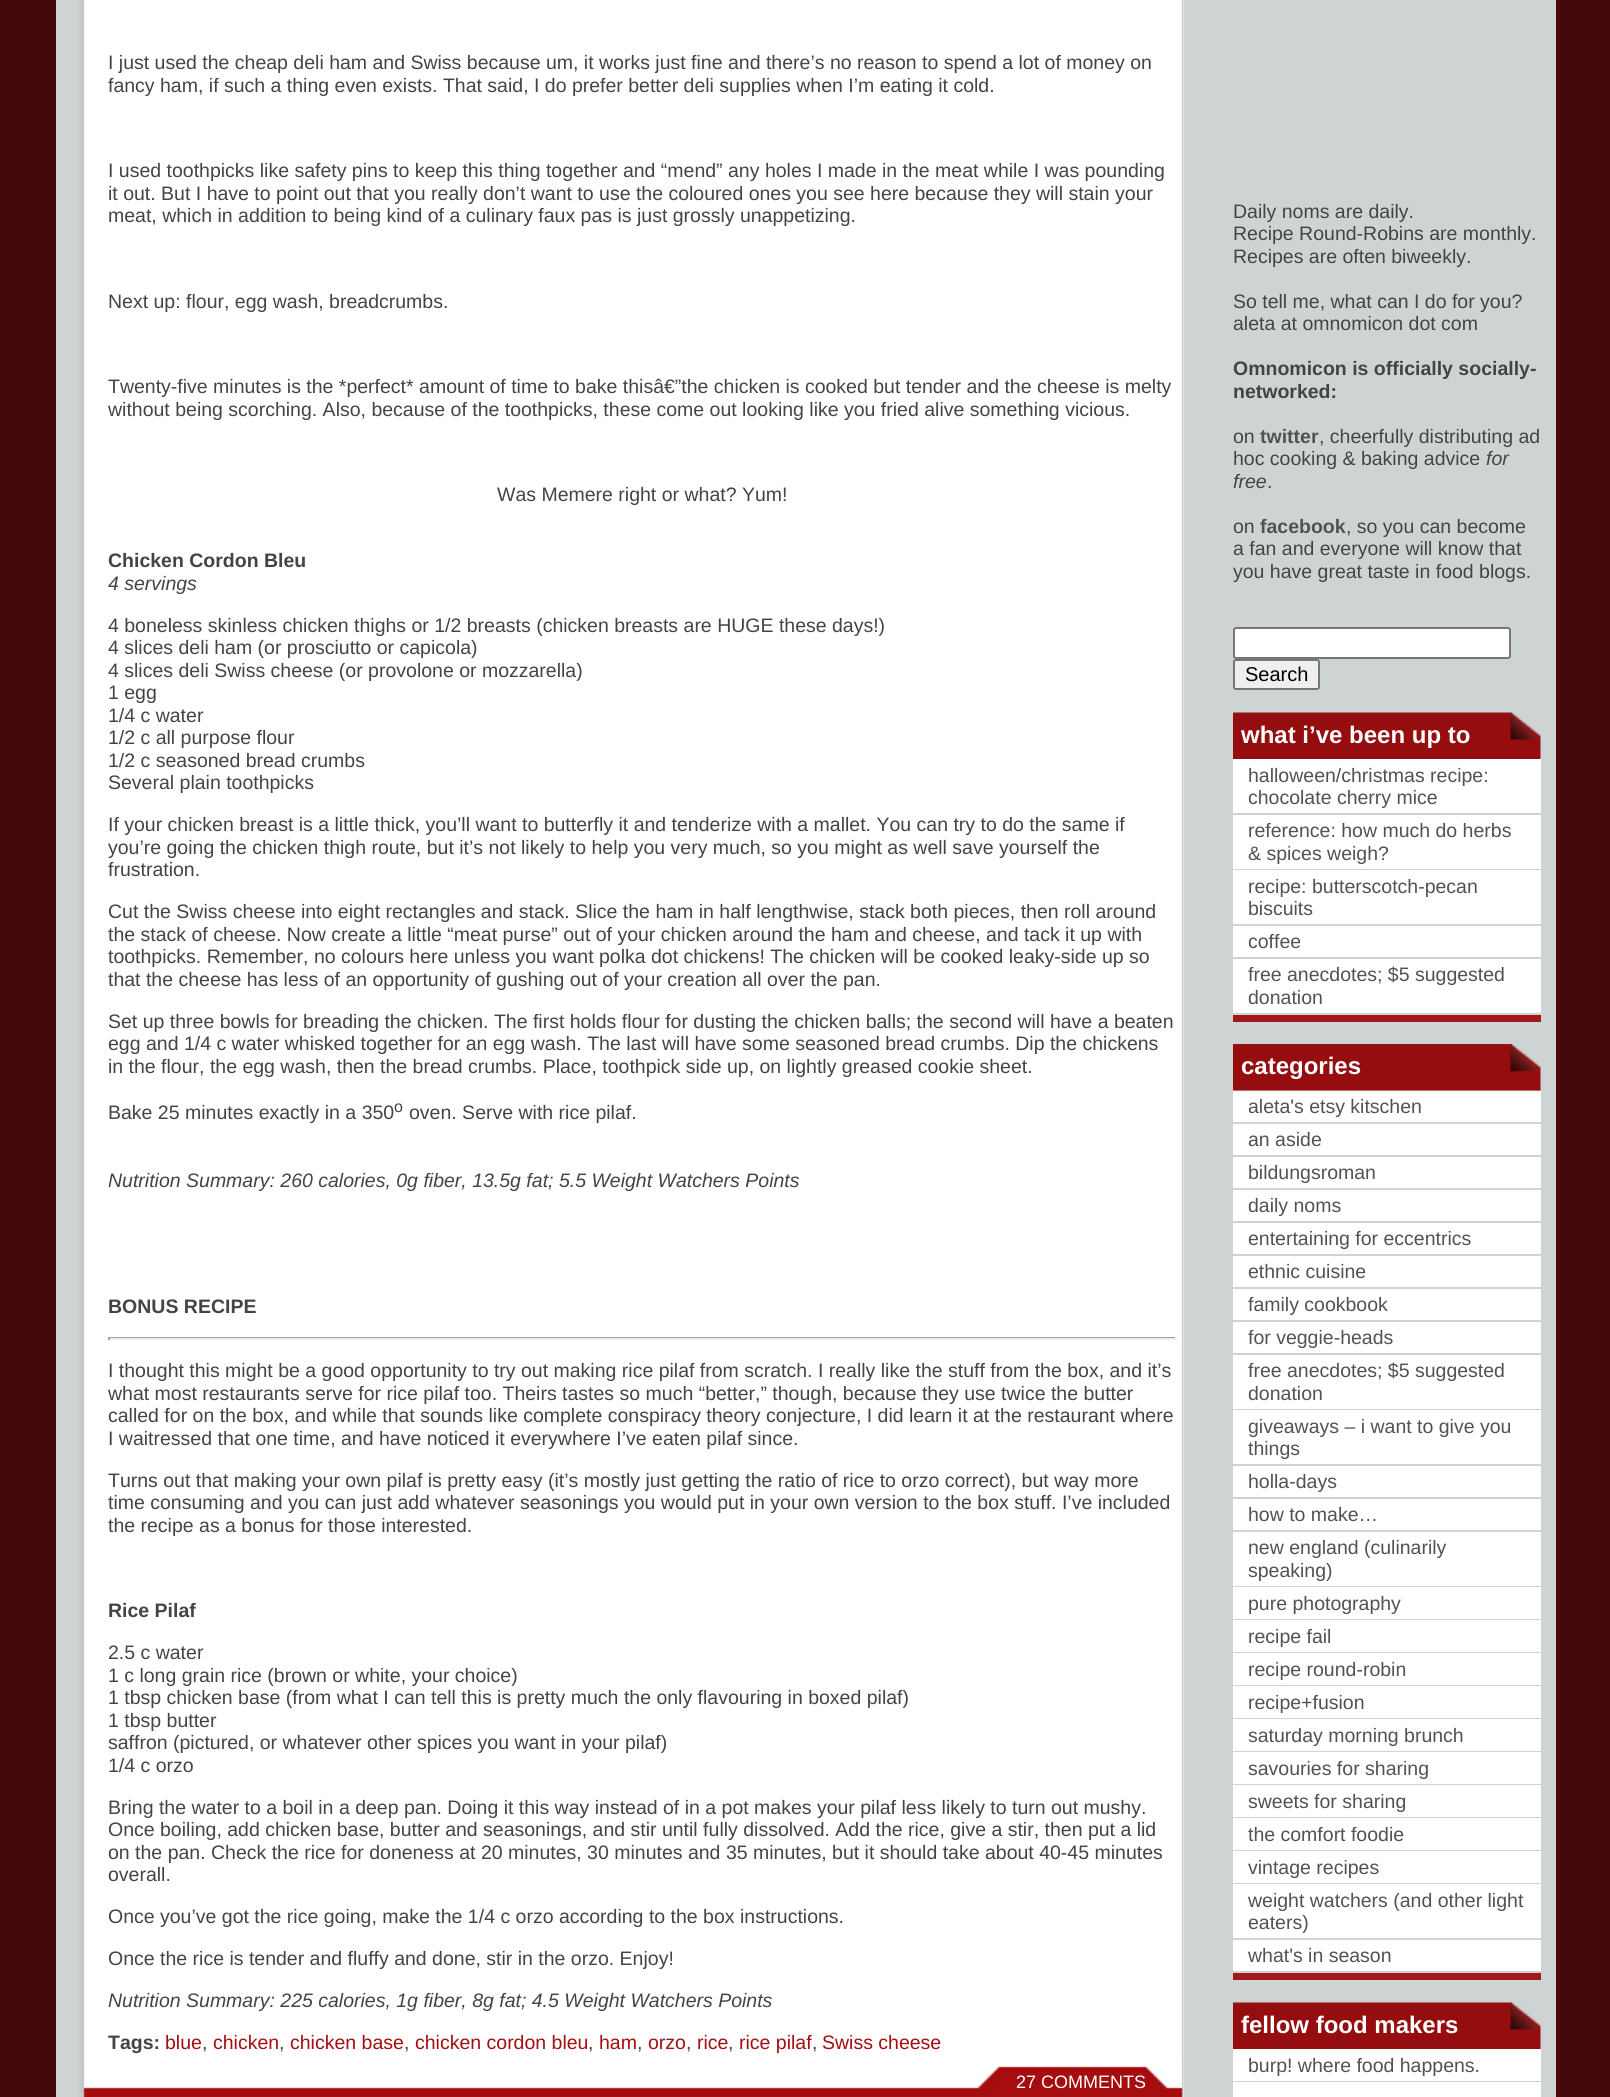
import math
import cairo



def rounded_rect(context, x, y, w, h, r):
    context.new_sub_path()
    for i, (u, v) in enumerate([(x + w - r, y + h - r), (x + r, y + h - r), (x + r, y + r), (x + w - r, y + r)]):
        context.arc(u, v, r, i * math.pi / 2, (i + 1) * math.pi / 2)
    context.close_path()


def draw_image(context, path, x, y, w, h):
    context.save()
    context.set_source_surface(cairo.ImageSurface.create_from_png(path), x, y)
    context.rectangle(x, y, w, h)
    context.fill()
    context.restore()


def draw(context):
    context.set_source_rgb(69 / 255, 9 / 255, 9 / 255)
    context.paint()
    context.set_source_rgb(206 / 255, 212 / 255, 212 / 255)
    context.rectangle(56, 0, 1500, 2097)
    context.fill()
    context.set_source_rgb(1, 1, 1)
    context.rectangle(1183, 0, 1, 2097)
    context.fill()
    draw_image(context, "images/1.png", 78, 0, 1106, 2061)
    context.set_source_rgb(159 / 255, 159 / 255, 159 / 255)
    context.rectangle(108, 1337, 1068, 1)
    context.fill()
    context.set_source_rgb(238 / 255, 238 / 255, 238 / 255)
    context.rectangle(1175, 1337, 2, 3)
    context.fill()
    context.rectangle(108, 1338, 1068, 2)
    context.fill()
    context.set_source_rgb(159 / 255, 159 / 255, 159 / 255)
    context.rectangle(108, 1337, 2, 3)
    context.fill()
    draw_image(context, "images/2.png", 78, 2061, 1106, 36)
    context.set_source_rgb(1, 1, 1)
    rounded_rect(context, 1234, 628, 276, 30, 2)
    context.fill_preserve()
    context.set_source_rgb(118 / 255, 118 / 255, 118 / 255)
    context.stroke()
    context.set_source_rgb(239 / 255, 239 / 255, 239 / 255)
    rounded_rect(context, 1234, 660, 85, 29, 2)
    context.fill_preserve()
    context.set_source_rgb(118 / 255, 118 / 255, 118 / 255)
    context.stroke()
    draw_image(context, "images/3.png", 1233, 712, 308, 47)
    context.set_source_rgb(163 / 255, 25 / 255, 25 / 255)
    context.rectangle(1233, 1015, 308, 7)
    context.fill()
    context.set_source_rgb(1, 1, 1)
    context.rectangle(1233, 759, 308, 54)
    context.fill()
    context.rectangle(1233, 815, 308, 54)
    context.fill()
    context.rectangle(1233, 870, 308, 54)
    context.fill()
    context.rectangle(1233, 926, 308, 31)
    context.fill()
    context.rectangle(1233, 959, 308, 54)
    context.fill()
    draw_image(context, "images/4.png", 1233, 1044, 308, 47)
    context.set_source_rgb(163 / 255, 25 / 255, 25 / 255)
    context.rectangle(1233, 1973, 308, 7)
    context.fill()
    context.set_source_rgb(1, 1, 1)
    context.rectangle(1233, 1091, 308, 31)
    context.fill()
    context.rectangle(1233, 1124, 308, 31)
    context.fill()
    context.rectangle(1233, 1157, 308, 31)
    context.fill()
    context.rectangle(1233, 1190, 308, 31)
    context.fill()
    context.rectangle(1233, 1223, 308, 31)
    context.fill()
    context.rectangle(1233, 1256, 308, 31)
    context.fill()
    context.rectangle(1233, 1289, 308, 31)
    context.fill()
    context.rectangle(1233, 1322, 308, 31)
    context.fill()
    context.rectangle(1233, 1355, 308, 54)
    context.fill()
    context.rectangle(1233, 1410, 308, 54)
    context.fill()
    context.rectangle(1233, 1466, 308, 31)
    context.fill()
    context.rectangle(1233, 1499, 308, 31)
    context.fill()
    context.rectangle(1233, 1532, 308, 54)
    context.fill()
    context.rectangle(1233, 1587, 308, 32)
    context.fill()
    context.rectangle(1233, 1620, 308, 32)
    context.fill()
    context.rectangle(1233, 1653, 308, 32)
    context.fill()
    context.rectangle(1233, 1686, 308, 32)
    context.fill()
    context.rectangle(1233, 1719, 308, 32)
    context.fill()
    context.rectangle(1233, 1752, 308, 32)
    context.fill()
    context.rectangle(1233, 1785, 308, 32)
    context.fill()
    context.rectangle(1233, 1818, 308, 32)
    context.fill()
    context.rectangle(1233, 1851, 308, 32)
    context.fill()
    context.rectangle(1233, 1884, 308, 54)
    context.fill()
    context.rectangle(1233, 1940, 308, 31)
    context.fill()
    draw_image(context, "images/3.png", 1233, 2002, 308, 47)
    context.rectangle(1233, 2049, 308, 32)
    context.fill()
    context.rectangle(1233, 2082, 308, 15)
    context.fill()
    context.select_font_face("Liberation Sans")
    context.set_font_size(19.5)
    context.set_source_rgb(68 / 255, 68 / 255, 68 / 255)
    context.move_to(108, 69)
    context.show_text("I just used the cheap deli ham and Swiss because um, it works just fine and there’s no reason to spend a lot of money on")
    context.move_to(108, 92)
    context.show_text("fancy ham, if such a thing even exists. That said, I do prefer better deli supplies when I’m eating it cold.")
    context.move_to(108, 177)
    context.show_text("I used toothpicks like safety pins to keep this thing together and “mend” any holes I made in the meat while I was pounding")
    context.move_to(108, 200)
    context.show_text("it out. But I have to point out that you really don’t want to use the coloured ones you see here because they will stain your")
    context.move_to(108, 222)
    context.show_text("meat, which in addition to being kind of a culinary faux pas is just grossly unappetizing.")
    context.move_to(108, 308)
    context.show_text("Next up: flour, egg wash, breadcrumbs.")
    context.move_to(108, 393)
    context.show_text("Twenty-five minutes is the *perfect* amount of time to bake thisâ€”the chicken is cooked but tender and the cheese is melty")
    context.move_to(108, 416)
    context.show_text("without being scorching. Also, because of the toothpicks, these come out looking like you fried alive something vicious.")
    context.move_to(497, 501)
    context.show_text("Was Memere right or what? Yum!")
    context.select_font_face("Liberation Sans", cairo.FontSlant.NORMAL, cairo.FontWeight.BOLD)
    context.move_to(108, 567)
    context.show_text("Chicken Cordon Bleu")
    context.select_font_face("Liberation Sans", cairo.FontSlant.ITALIC)
    context.move_to(108, 590)
    context.show_text("4 servings")
    context.select_font_face("Liberation Sans")
    context.move_to(108, 632)
    context.show_text("4 boneless skinless chicken thighs or 1/2 breasts (chicken breasts are HUGE these days!)")
    context.move_to(108, 654)
    context.show_text("4 slices deli ham (or prosciutto or capicola)")
    context.move_to(108, 677)
    context.show_text("4 slices deli Swiss cheese (or provolone or mozzarella)")
    context.move_to(108, 699)
    context.show_text("1 egg")
    context.move_to(108, 722)
    context.show_text("1/4 c water")
    context.move_to(108, 744)
    context.show_text("1/2 c all purpose flour")
    context.move_to(108, 767)
    context.show_text("1/2 c seasoned bread crumbs")
    context.move_to(108, 789)
    context.show_text("Several plain toothpicks")
    context.move_to(108, 831)
    context.show_text("If your chicken breast is a little thick, you’ll want to butterfly it and tenderize with a mallet. You can try to do the same if")
    context.move_to(108, 854)
    context.show_text("you’re going the chicken thigh route, but it’s not likely to help you very much, so you might as well save yourself the")
    context.move_to(108, 876)
    context.show_text("frustration.")
    context.move_to(108, 918)
    context.show_text("Cut the Swiss cheese into eight rectangles and stack. Slice the ham in half lengthwise, stack both pieces, then roll around")
    context.move_to(108, 941)
    context.show_text("the stack of cheese. Now create a little “meat purse” out of your chicken around the ham and cheese, and tack it up with")
    context.move_to(108, 963)
    context.show_text("toothpicks. Remember, no colours here unless you want polka dot chickens! The chicken will be cooked leaky-side up so")
    context.move_to(108, 986)
    context.show_text("that the cheese has less of an opportunity of gushing out of your creation all over the pan.")
    context.move_to(108, 1028)
    context.show_text("Set up three bowls for breading the chicken. The first holds flour for dusting the chicken balls; the second will have a beaten")
    context.move_to(108, 1050)
    context.show_text("egg and 1/4 c water whisked together for an egg wash. The last will have some seasoned bread crumbs. Dip the chickens")
    context.move_to(108, 1073)
    context.show_text("in the flour, the egg wash, then the bread crumbs. Place, toothpick side up, on lightly greased cookie sheet.")
    context.move_to(108, 1119)
    context.show_text("Bake 25 minutes exactly in a 350")
    context.set_font_size(16)
    context.move_to(394, 1112)
    context.show_text("o")
    context.set_font_size(19.5)
    context.move_to(409, 1119)
    context.show_text("oven. Serve with rice pilaf.")
    context.select_font_face("Liberation Sans", cairo.FontSlant.ITALIC)
    context.move_to(108, 1187)
    context.show_text("Nutrition Summary: 260 calories, 0g fiber, 13.5g fat; 5.5 Weight Watchers Points")
    context.select_font_face("Liberation Sans", cairo.FontSlant.NORMAL, cairo.FontWeight.BOLD)
    context.move_to(108, 1313)
    context.show_text("BONUS RECIPE")
    context.select_font_face("Liberation Sans")
    context.move_to(108, 1377)
    context.show_text("I thought this might be a good opportunity to try out making rice pilaf from scratch. I really like the stuff from the box, and it’s")
    context.move_to(108, 1400)
    context.show_text("what most restaurants serve for rice pilaf too. Theirs tastes so much “better,” though, because they use twice the butter")
    context.move_to(108, 1422)
    context.show_text("called for on the box, and while that sounds like complete conspiracy theory conjecture, I did learn it at the restaurant where")
    context.move_to(108, 1445)
    context.show_text("I waitressed that one time, and have noticed it everywhere I’ve eaten pilaf since.")
    context.move_to(108, 1487)
    context.show_text("Turns out that making your own pilaf is pretty easy (it’s mostly just getting the ratio of rice to orzo correct), but way more")
    context.move_to(108, 1509)
    context.show_text("time consuming and you can just add whatever seasonings you would put in your own version to the box stuff. I’ve included")
    context.move_to(108, 1532)
    context.show_text("the recipe as a bonus for those interested.")
    context.select_font_face("Liberation Sans", cairo.FontSlant.NORMAL, cairo.FontWeight.BOLD)
    context.move_to(108, 1617)
    context.show_text("Rice Pilaf")
    context.select_font_face("Liberation Sans")
    context.move_to(108, 1659)
    context.show_text("2.5 c water")
    context.move_to(108, 1682)
    context.show_text("1 c long grain rice (brown or white, your choice)")
    context.move_to(108, 1704)
    context.show_text("1 tbsp chicken base (from what I can tell this is pretty much the only flavouring in boxed pilaf)")
    context.move_to(108, 1727)
    context.show_text("1 tbsp butter")
    context.move_to(108, 1749)
    context.show_text("saffron (pictured, or whatever other spices you want in your pilaf)")
    context.move_to(108, 1772)
    context.show_text("1/4 c orzo")
    context.move_to(108, 1814)
    context.show_text("Bring the water to a boil in a deep pan. Doing it this way instead of in a pot makes your pilaf less likely to turn out mushy.")
    context.move_to(108, 1836)
    context.show_text("Once boiling, add chicken base, butter and seasonings, and stir until fully dissolved. Add the rice, give a stir, then put a lid")
    context.move_to(108, 1859)
    context.show_text("on the pan. Check the rice for doneness at 20 minutes, 30 minutes and 35 minutes, but it should take about 40-45 minutes")
    context.move_to(108, 1881)
    context.show_text("overall.")
    context.move_to(108, 1923)
    context.show_text("Once you’ve got the rice going, make the 1/4 c orzo according to the box instructions.")
    context.move_to(108, 1965)
    context.show_text("Once the rice is tender and fluffy and done, stir in the orzo. Enjoy!")
    context.select_font_face("Liberation Sans", cairo.FontSlant.ITALIC)
    context.move_to(108, 2007)
    context.show_text("Nutrition Summary: 225 calories, 1g fiber, 8g fat; 4.5 Weight Watchers Points")
    context.select_font_face("Liberation Sans", cairo.FontSlant.NORMAL, cairo.FontWeight.BOLD)
    context.move_to(108, 2049)
    context.show_text("Tags:")
    context.select_font_face("Liberation Sans")
    context.set_source_rgb(165 / 255, 13 / 255, 14 / 255)
    context.move_to(165, 2049)
    context.show_text("blue")
    context.set_source_rgb(68 / 255, 68 / 255, 68 / 255)
    context.move_to(202, 2049)
    context.show_text(",")
    context.set_source_rgb(165 / 255, 13 / 255, 14 / 255)
    context.move_to(213, 2049)
    context.show_text("chicken")
    context.set_source_rgb(68 / 255, 68 / 255, 68 / 255)
    context.move_to(279, 2049)
    context.show_text(",")
    context.set_source_rgb(165 / 255, 13 / 255, 14 / 255)
    context.move_to(290, 2049)
    context.show_text("chicken base")
    context.set_source_rgb(68 / 255, 68 / 255, 68 / 255)
    context.move_to(404, 2049)
    context.show_text(",")
    context.set_source_rgb(165 / 255, 13 / 255, 14 / 255)
    context.move_to(415, 2049)
    context.show_text("chicken cordon bleu")
    context.set_source_rgb(68 / 255, 68 / 255, 68 / 255)
    context.move_to(588, 2049)
    context.show_text(",")
    context.set_source_rgb(165 / 255, 13 / 255, 14 / 255)
    context.move_to(599, 2049)
    context.show_text("ham")
    context.set_source_rgb(68 / 255, 68 / 255, 68 / 255)
    context.move_to(637, 2049)
    context.show_text(",")
    context.set_source_rgb(165 / 255, 13 / 255, 14 / 255)
    context.move_to(648, 2049)
    context.show_text("orzo")
    context.set_source_rgb(68 / 255, 68 / 255, 68 / 255)
    context.move_to(686, 2049)
    context.show_text(",")
    context.set_source_rgb(165 / 255, 13 / 255, 14 / 255)
    context.move_to(697, 2049)
    context.show_text("rice")
    context.set_source_rgb(68 / 255, 68 / 255, 68 / 255)
    context.move_to(728, 2049)
    context.show_text(",")
    context.set_source_rgb(165 / 255, 13 / 255, 14 / 255)
    context.move_to(739, 2049)
    context.show_text("rice pilaf")
    context.set_source_rgb(68 / 255, 68 / 255, 68 / 255)
    context.move_to(812, 2049)
    context.show_text(",")
    context.set_source_rgb(165 / 255, 13 / 255, 14 / 255)
    context.move_to(822, 2049)
    context.show_text("Swiss cheese")
    context.set_font_size(18)
    context.set_source_rgb(1, 1, 1)
    context.move_to(1016, 2088)
    context.show_text("27 COMMENTS")
    context.set_font_size(19.5)
    context.set_source_rgb(68 / 255, 68 / 255, 68 / 255)
    context.move_to(1233, 218)
    context.show_text("Daily noms are daily.")
    context.move_to(1233, 240)
    context.show_text("Recipe Round-Robins are monthly.")
    context.move_to(1233, 263)
    context.show_text("Recipes are often biweekly.")
    context.move_to(1233, 308)
    context.show_text("So tell me, what can I do for you?")
    context.move_to(1233, 330)
    context.show_text("aleta at omnomicon dot com")
    context.select_font_face("Liberation Sans", cairo.FontSlant.NORMAL, cairo.FontWeight.BOLD)
    context.move_to(1233, 375)
    context.show_text("Omnomicon is officially socially-")
    context.move_to(1233, 398)
    context.show_text("networked:")
    context.select_font_face("Liberation Sans")
    context.move_to(1233, 443)
    context.show_text("on")
    context.select_font_face("Liberation Sans", cairo.FontSlant.NORMAL, cairo.FontWeight.BOLD)
    context.set_source_rgb(82 / 255, 82 / 255, 82 / 255)
    context.move_to(1260, 443)
    context.show_text("twitter")
    context.select_font_face("Liberation Sans")
    context.set_source_rgb(68 / 255, 68 / 255, 68 / 255)
    context.move_to(1319, 443)
    context.show_text(", cheerfully distributing ad")
    context.move_to(1233, 465)
    context.show_text("hoc cooking & baking advice")
    context.select_font_face("Liberation Sans", cairo.FontSlant.ITALIC)
    context.move_to(1486, 465)
    context.show_text("for")
    context.move_to(1233, 488)
    context.show_text("free")
    context.select_font_face("Liberation Sans")
    context.move_to(1267, 488)
    context.show_text(".")
    context.move_to(1233, 533)
    context.show_text("on")
    context.select_font_face("Liberation Sans", cairo.FontSlant.NORMAL, cairo.FontWeight.BOLD)
    context.set_source_rgb(82 / 255, 82 / 255, 82 / 255)
    context.move_to(1260, 533)
    context.show_text("facebook")
    context.select_font_face("Liberation Sans")
    context.set_source_rgb(68 / 255, 68 / 255, 68 / 255)
    context.move_to(1346, 533)
    context.show_text(", so you can become")
    context.move_to(1233, 555)
    context.show_text("a fan and everyone will know that")
    context.move_to(1233, 578)
    context.show_text("you have great taste in food blogs.")
    context.set_font_size(20)
    context.set_source_rgb(0, 0, 0)
    context.move_to(1245, 681)
    context.show_text("Search")
    context.select_font_face("Liberation Sans", cairo.FontSlant.NORMAL, cairo.FontWeight.BOLD)
    context.set_font_size(24)
    context.set_source_rgb(1, 1, 1)
    context.move_to(1241, 743)
    context.show_text("what i’ve been up to")
    context.select_font_face("Liberation Sans")
    context.set_font_size(19.5)
    context.set_source_rgb(82 / 255, 82 / 255, 82 / 255)
    context.move_to(1248, 782)
    context.show_text("halloween/christmas recipe:")
    context.move_to(1248, 804)
    context.show_text("chocolate cherry mice")
    context.move_to(1248, 837)
    context.show_text("reference: how much do herbs")
    context.move_to(1248, 860)
    context.show_text("& spices weigh?")
    context.move_to(1248, 893)
    context.show_text("recipe: butterscotch-pecan")
    context.move_to(1248, 915)
    context.show_text("biscuits")
    context.move_to(1248, 948)
    context.show_text("coffee")
    context.move_to(1248, 981)
    context.show_text("free anecdotes; $5 suggested")
    context.move_to(1248, 1004)
    context.show_text("donation")
    context.select_font_face("Liberation Sans", cairo.FontSlant.NORMAL, cairo.FontWeight.BOLD)
    context.set_font_size(24)
    context.set_source_rgb(1, 1, 1)
    context.move_to(1241, 1074)
    context.show_text("categories")
    context.select_font_face("Liberation Sans")
    context.set_font_size(19.5)
    context.set_source_rgb(82 / 255, 82 / 255, 82 / 255)
    context.move_to(1248, 1113)
    context.show_text("aleta's etsy kitschen")
    context.move_to(1248, 1146)
    context.show_text("an aside")
    context.move_to(1248, 1179)
    context.show_text("bildungsroman")
    context.move_to(1248, 1212)
    context.show_text("daily noms")
    context.move_to(1248, 1245)
    context.show_text("entertaining for eccentrics")
    context.move_to(1248, 1278)
    context.show_text("ethnic cuisine")
    context.move_to(1248, 1311)
    context.show_text("family cookbook")
    context.move_to(1248, 1344)
    context.show_text("for veggie-heads")
    context.move_to(1248, 1377)
    context.show_text("free anecdotes; $5 suggested")
    context.move_to(1248, 1400)
    context.show_text("donation")
    context.move_to(1248, 1433)
    context.show_text("giveaways – i want to give you")
    context.move_to(1248, 1455)
    context.show_text("things")
    context.move_to(1248, 1488)
    context.show_text("holla-days")
    context.move_to(1248, 1521)
    context.show_text("how to make…")
    context.move_to(1248, 1554)
    context.show_text("new england (culinarily")
    context.move_to(1248, 1577)
    context.show_text("speaking)")
    context.move_to(1248, 1610)
    context.show_text("pure photography")
    context.move_to(1248, 1643)
    context.show_text("recipe fail")
    context.move_to(1248, 1676)
    context.show_text("recipe round-robin")
    context.move_to(1248, 1709)
    context.show_text("recipe+fusion")
    context.move_to(1248, 1742)
    context.show_text("saturday morning brunch")
    context.move_to(1248, 1775)
    context.show_text("savouries for sharing")
    context.move_to(1248, 1808)
    context.show_text("sweets for sharing")
    context.move_to(1248, 1841)
    context.show_text("the comfort foodie")
    context.move_to(1248, 1874)
    context.show_text("vintage recipes")
    context.move_to(1248, 1907)
    context.show_text("weight watchers (and other light")
    context.move_to(1248, 1929)
    context.show_text("eaters)")
    context.move_to(1248, 1962)
    context.show_text("what's in season")
    context.select_font_face("Liberation Sans", cairo.FontSlant.NORMAL, cairo.FontWeight.BOLD)
    context.set_font_size(24)
    context.set_source_rgb(1, 1, 1)
    context.move_to(1241, 2033)
    context.show_text("fellow food makers")
    context.select_font_face("Liberation Sans")
    context.set_font_size(19.5)
    context.set_source_rgb(82 / 255, 82 / 255, 82 / 255)
    context.move_to(1248, 2072)
    context.show_text("burp! where food happens.")


surface = cairo.ImageSurface(cairo.Format.RGB24, 1610, 2097)
context = cairo.Context(surface)
options = cairo.FontOptions()
options.set_hint_metrics(cairo.HintMetrics.OFF)
options.set_hint_style(cairo.HintStyle.NONE)
context.set_font_options(options)
context.set_miter_limit(4)
draw(context)
surface.write_to_png("out.png")
